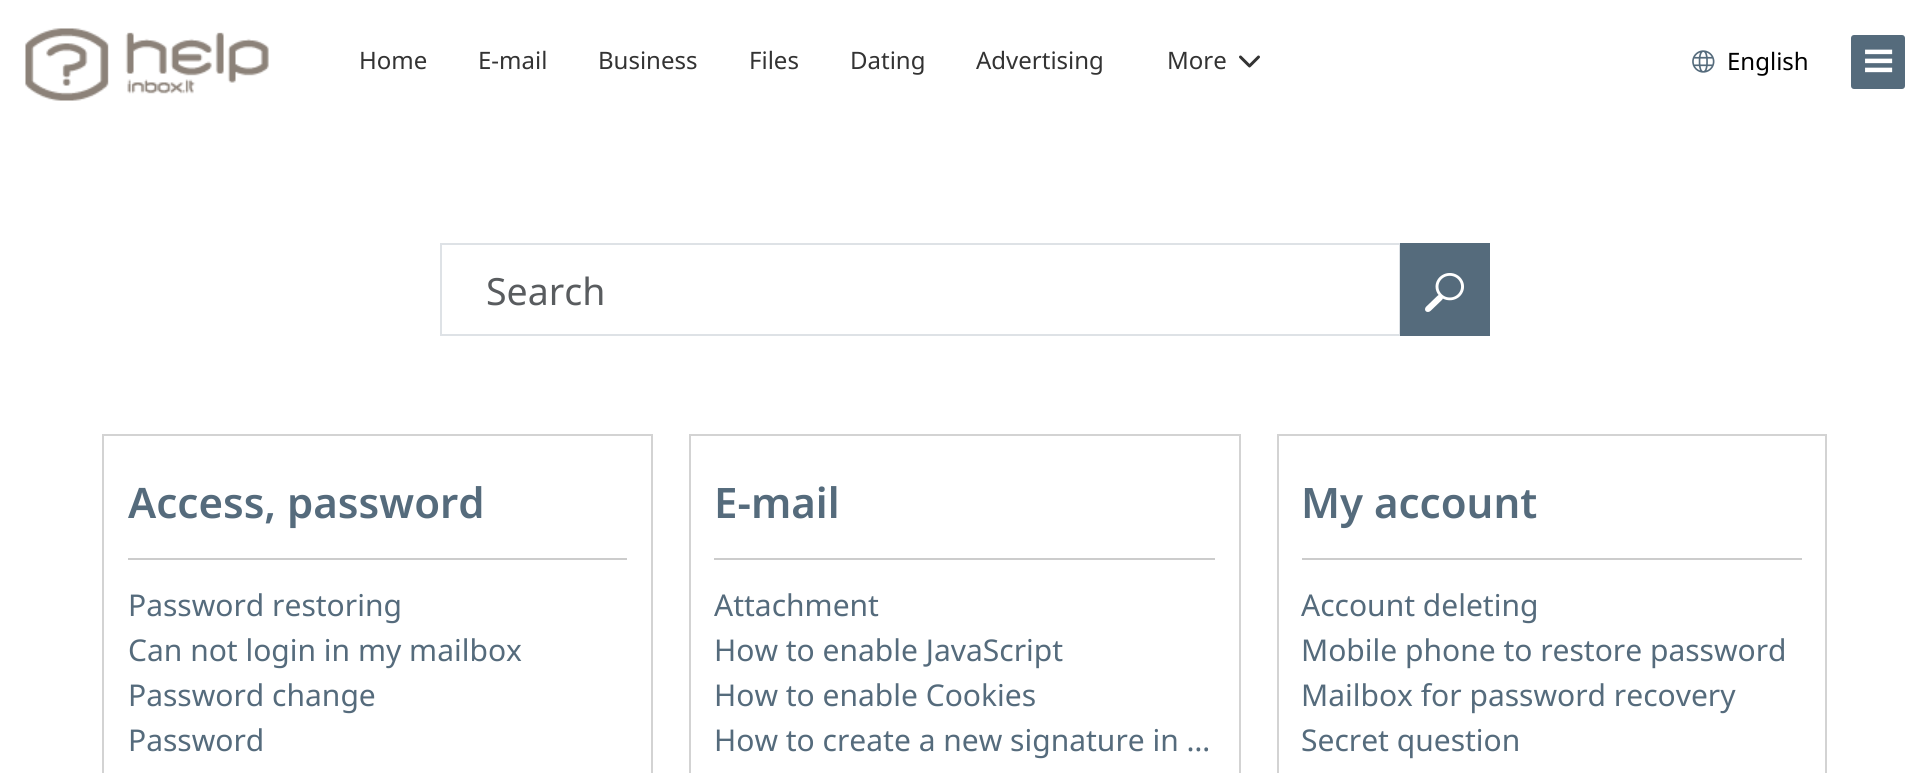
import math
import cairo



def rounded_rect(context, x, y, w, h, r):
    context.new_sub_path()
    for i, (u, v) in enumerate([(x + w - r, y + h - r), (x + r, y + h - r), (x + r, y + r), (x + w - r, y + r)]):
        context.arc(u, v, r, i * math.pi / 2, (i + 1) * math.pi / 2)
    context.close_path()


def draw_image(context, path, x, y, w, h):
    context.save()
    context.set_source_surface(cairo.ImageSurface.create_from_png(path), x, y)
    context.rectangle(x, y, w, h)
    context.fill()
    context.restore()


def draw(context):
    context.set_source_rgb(1, 1, 1)
    context.paint()
    draw_image(context, "images/1.png", 25, 28, 244, 73)
    draw_image(context, "images/2.png", 1239, 55, 21, 13)
    draw_image(context, "images/3.png", 1692, 50, 23, 23)
    context.set_source_rgb(85 / 255, 107 / 255, 124 / 255)
    rounded_rect(context, 1852, 36, 52, 52, 2)
    context.fill_preserve()
    context.stroke()
    draw_image(context, "images/4.png", 1865, 49, 28, 24)
    context.rectangle(441, 244, 959, 91)
    context.set_source_rgb(222 / 255, 226 / 255, 230 / 255)
    context.stroke()
    context.set_source_rgb(85 / 255, 107 / 255, 124 / 255)
    context.rectangle(1400, 243, 90, 93)
    context.fill()
    draw_image(context, "images/5.png", 1425, 273, 39, 39)
    context.rectangle(103, 435, 549, 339)
    context.set_source_rgb(211 / 255, 211 / 255, 211 / 255)
    context.stroke()
    context.set_source_rgb(204 / 255, 204 / 255, 204 / 255)
    context.rectangle(128, 558, 499, 2)
    context.fill()
    context.rectangle(690, 435, 550, 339)
    context.set_source_rgb(211 / 255, 211 / 255, 211 / 255)
    context.stroke()
    context.set_source_rgb(204 / 255, 204 / 255, 204 / 255)
    context.rectangle(714, 558, 501, 2)
    context.fill()
    context.rectangle(1278, 435, 548, 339)
    context.set_source_rgb(211 / 255, 211 / 255, 211 / 255)
    context.stroke()
    context.set_source_rgb(204 / 255, 204 / 255, 204 / 255)
    context.rectangle(1302, 558, 500, 2)
    context.fill()
    context.select_font_face("Noto Sans")
    context.set_font_size(24)
    context.set_source_rgb(51 / 255, 51 / 255, 51 / 255)
    context.move_to(359, 69)
    context.show_text("Home")
    context.move_to(478, 69)
    context.show_text("E-mail")
    context.move_to(598, 69)
    context.show_text("Business")
    context.move_to(749, 69)
    context.show_text("Files")
    context.move_to(850, 69)
    context.show_text("Dating")
    context.move_to(976, 69)
    context.show_text("Advertising")
    context.move_to(1167, 69)
    context.show_text("More")
    context.set_source_rgb(0, 0, 0)
    context.move_to(1727, 70)
    context.show_text("English")
    context.set_font_size(37.5)
    context.set_source_rgb(89 / 255, 92 / 255, 95 / 255)
    context.move_to(486, 305)
    context.show_text("Search")
    context.select_font_face("Noto Sans SemiBold")
    context.set_font_size(42)
    context.set_source_rgb(85 / 255, 107 / 255, 124 / 255)
    context.move_to(128, 518)
    context.show_text("Access, password")
    context.select_font_face("Noto Sans")
    context.set_font_size(30)
    context.move_to(128, 616)
    context.show_text("Password restoring")
    context.move_to(128, 661)
    context.show_text("Can not login in my mailbox")
    context.move_to(128, 706)
    context.show_text("Password change")
    context.move_to(128, 751)
    context.show_text("Password")
    context.select_font_face("Noto Sans SemiBold")
    context.set_font_size(42)
    context.move_to(714, 518)
    context.show_text("E-mail")
    context.select_font_face("Noto Sans")
    context.set_font_size(30)
    context.move_to(714, 616)
    context.show_text("Attachment")
    context.move_to(714, 661)
    context.show_text("How to enable JavaScript")
    context.move_to(714, 706)
    context.show_text("How to enable Cookies")
    context.move_to(714, 751)
    context.show_text("How to create a new signature in …")
    context.select_font_face("Noto Sans SemiBold")
    context.set_font_size(42)
    context.move_to(1301, 518)
    context.show_text("My account")
    context.select_font_face("Noto Sans")
    context.set_font_size(30)
    context.move_to(1301, 616)
    context.show_text("Account deleting")
    context.move_to(1301, 661)
    context.show_text("Mobile phone to restore password")
    context.move_to(1301, 706)
    context.show_text("Mailbox for password recovery")
    context.move_to(1301, 751)
    context.show_text("Secret question")


surface = cairo.ImageSurface(cairo.Format.RGB24, 1928, 773)
context = cairo.Context(surface)
options = cairo.FontOptions()
options.set_hint_metrics(cairo.HintMetrics.OFF)
options.set_hint_style(cairo.HintStyle.NONE)
context.set_font_options(options)
context.set_miter_limit(4)
draw(context)
surface.write_to_png("out.png")
